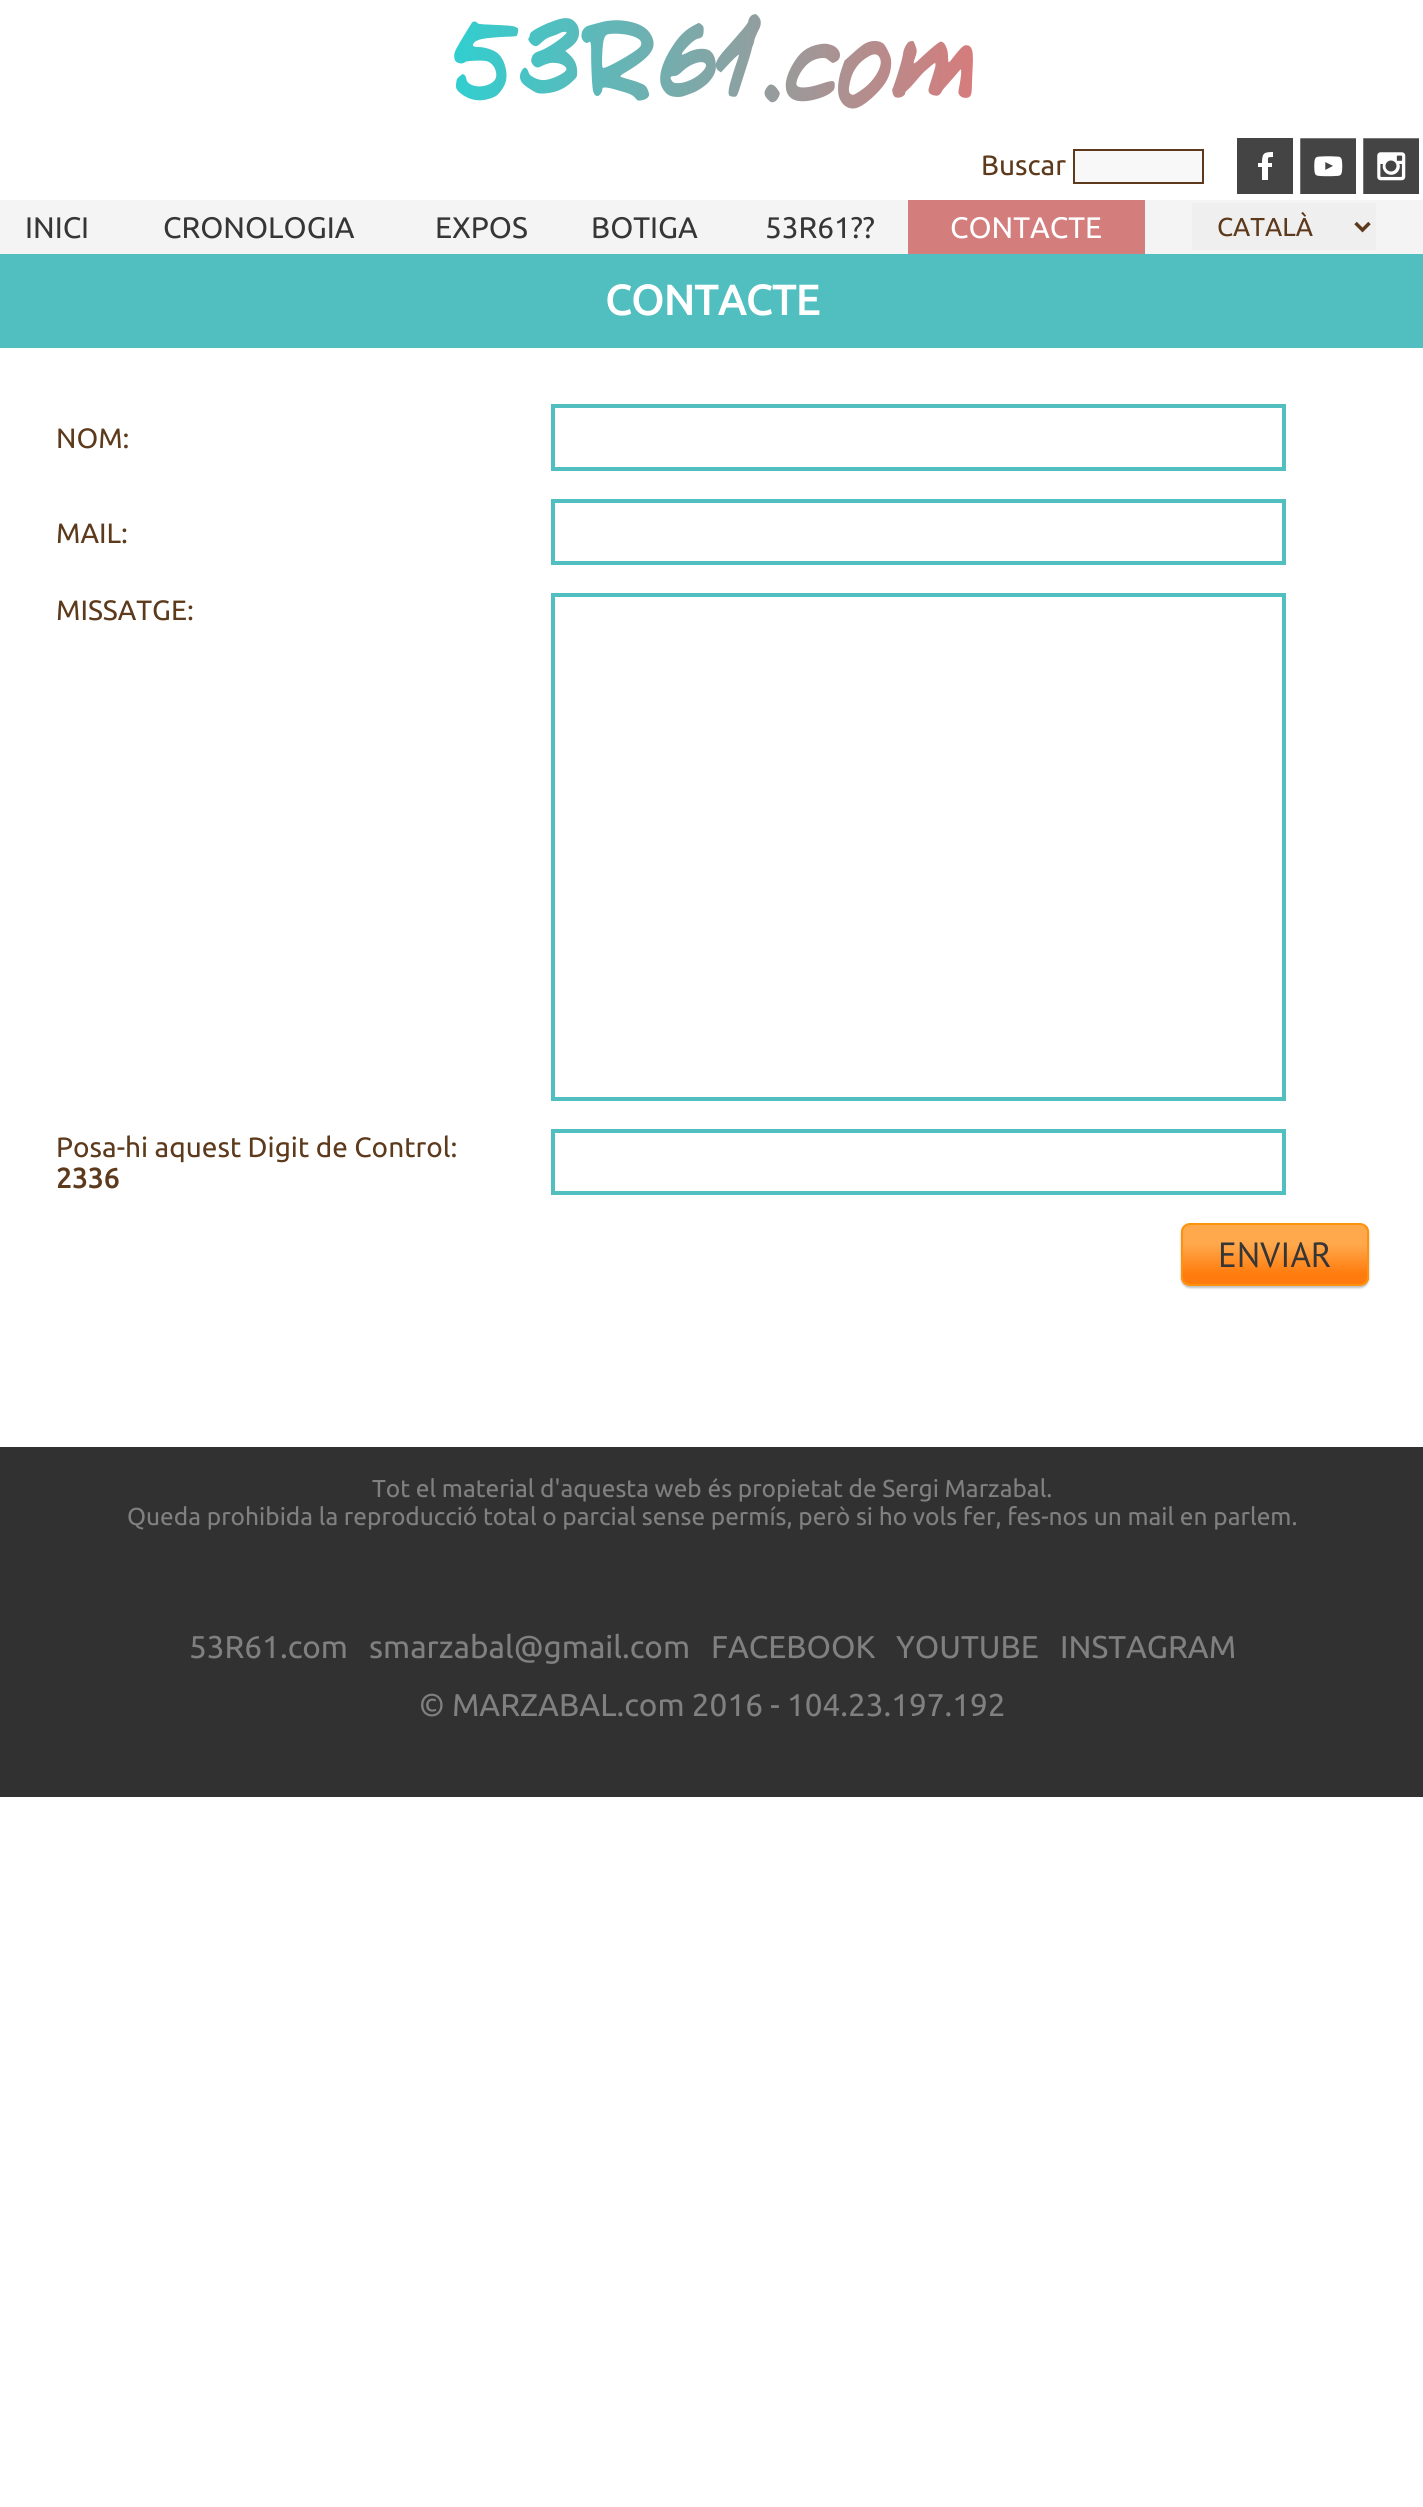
import math
import cairo



def rounded_rect(context, x, y, w, h, r):
    context.new_sub_path()
    for i, (u, v) in enumerate([(x + w - r, y + h - r), (x + r, y + h - r), (x + r, y + r), (x + w - r, y + r)]):
        context.arc(u, v, r, i * math.pi / 2, (i + 1) * math.pi / 2)
    context.close_path()


def draw_shadow(context, x, y, w, h, r, blur, alpha):
    context.push_group_with_content(cairo.Content.ALPHA)
    context.set_operator(cairo.Operator.SOURCE)
    for i in range(15, -16, -2):
        e = blur * i / 6
        if min(w, h) + 2 * e > 0:
            context.set_source_rgba(0, 0, 0, alpha * math.erfc((i - 1) / 8.5) / 2)
            rounded_rect(context, x - e, y - e, w + 2 * e, h + 2 * e, max(0, min(r + e + blur * .6, min(w, h) / 2 + e)))
            context.fill()
    context.mask(context.pop_group())


def draw_image(context, path, x, y, w, h):
    context.save()
    context.set_source_surface(cairo.ImageSurface.create_from_png(path), x, y)
    context.rectangle(x, y, w, h)
    context.fill()
    context.restore()


def draw(context):
    context.set_source_rgb(1, 1, 1)
    context.paint()
    context.set_source_rgb(248 / 255, 248 / 255, 248 / 255)
    context.rectangle(1074, 150, 129, 33)
    context.fill_preserve()
    context.set_source_rgb(93 / 255, 58 / 255, 28 / 255)
    context.stroke()
    context.set_source_rgb(68 / 255, 68 / 255, 68 / 255)
    context.new_path()
    context.move_to(1237, 138)
    context.line_to(1237, 194)
    context.line_to(1293, 194)
    context.line_to(1293, 138)
    context.close_path()
    context.move_to(1273, 157)
    context.curve_to(1267, 157, 1268, 157, 1268, 163)
    context.line_to(1272, 163)
    context.line_to(1272, 167)
    context.line_to(1268, 167)
    context.line_to(1268, 180)
    context.line_to(1262, 180)
    context.line_to(1262, 167)
    context.line_to(1258, 167)
    context.line_to(1258, 163)
    context.line_to(1262, 163)
    context.curve_to(1262, 153, 1264, 152, 1273, 152)
    context.close_path()
    context.fill()
    draw_image(context, "images/1.png", 1300, 138, 56, 56)
    draw_image(context, "images/2.png", 1363, 138, 56, 56)
    context.set_source_rgb(244 / 255, 244 / 255, 244 / 255)
    context.rectangle(0, 200, 1423, 54)
    context.fill()
    context.set_source_rgb(211 / 255, 125 / 255, 125 / 255)
    context.rectangle(908, 200, 237, 54)
    context.fill()
    context.set_source_rgb(239 / 255, 239 / 255, 239 / 255)
    context.rectangle(1192, 203, 184, 47)
    context.fill()
    context.new_path()
    context.move_to(1355.5, 223)
    context.line_to(1362.5, 230)
    context.line_to(1369.5, 223)
    context.set_source_rgb(93 / 255, 58 / 255, 28 / 255)
    context.set_line_width(3.5)
    context.stroke()
    context.set_source_rgb(81 / 255, 190 / 255, 191 / 255)
    context.rectangle(0, 254, 1423, 94)
    context.fill()
    context.rectangle(553, 406, 731, 63)
    context.set_line_width(4)
    context.stroke()
    context.rectangle(553, 501, 731, 62)
    context.stroke()
    context.rectangle(553, 595, 731, 504)
    context.stroke()
    context.rectangle(553, 1131, 731, 62)
    context.stroke()
    context.set_source_rgb(0, 0, 0)
    draw_shadow(context, 1181, 1225, 188, 63, 9, 1, 0.25)
    context.save()
    rounded_rect(context, 1181, 1223, 188, 63, 9)
    context.clip()
    gradient = cairo.LinearGradient(1275, 1225, 1275, 1285)
    gradient.add_color_stop_rgba(0.32, 1, 168 / 255, 76 / 255, 1)
    gradient.add_color_stop_rgba(0.82, 1, 123 / 255, 13 / 255, 1)
    context.set_source(gradient)
    context.rectangle(1181, 1225, 188, 60)
    context.fill()
    context.restore()
    rounded_rect(context, 1182, 1224, 186, 61, 8)
    context.set_source_rgb(1, 146 / 255, 13 / 255)
    context.set_line_width(2)
    context.stroke()
    context.set_source_rgb(49 / 255, 49 / 255, 49 / 255)
    context.rectangle(0, 1447, 1423, 350)
    context.fill()
    context.select_font_face("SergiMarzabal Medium")
    context.set_font_size(122.5)
    gradient = cairo.LinearGradient(452, 67, 973, 66)
    gradient.add_color_stop_rgba(0, 48 / 255, 207 / 255, 208 / 255, 1)
    gradient.add_color_stop_rgba(1, 214 / 255, 124 / 255, 124 / 255, 1)
    context.set_source(gradient)
    context.move_to(452, 103)
    context.show_text("53R61.com")
    context.select_font_face("Ubuntu")
    context.set_font_size(28)
    context.set_source_rgb(93 / 255, 58 / 255, 28 / 255)
    context.move_to(981, 175)
    context.show_text("Buscar")
    context.set_font_size(29.75)
    context.set_source_rgb(54 / 255, 54 / 255, 54 / 255)
    context.move_to(25, 238)
    context.show_text("INICI")
    context.move_to(163, 238)
    context.show_text("CRONOLOGIA")
    context.move_to(435, 238)
    context.show_text("EXPOS")
    context.move_to(591, 238)
    context.show_text("BOTIGA")
    context.move_to(765, 238)
    context.show_text("53R61??")
    context.set_source_rgb(1, 1, 1)
    context.move_to(950, 238)
    context.show_text("CONTACTE")
    context.set_font_size(26)
    context.set_source_rgb(93 / 255, 58 / 255, 28 / 255)
    context.move_to(1217, 236)
    context.show_text("CATALÀ")
    context.select_font_face("Ubuntu", cairo.FontSlant.NORMAL, cairo.FontWeight.BOLD)
    context.set_font_size(42)
    context.set_source_rgb(1, 1, 1)
    context.move_to(605, 315)
    context.show_text("CONTACTE")
    context.select_font_face("Ubuntu")
    context.set_font_size(28)
    context.set_source_rgb(93 / 255, 58 / 255, 28 / 255)
    context.move_to(56, 448)
    context.show_text("NOM:")
    context.move_to(56, 543)
    context.show_text("MAIL:")
    context.move_to(56, 620)
    context.show_text("MISSATGE:")
    context.move_to(56, 1157)
    context.show_text("Posa-hi aquest Digit de Control:")
    context.select_font_face("Ubuntu", cairo.FontSlant.NORMAL, cairo.FontWeight.BOLD)
    context.move_to(56, 1188)
    context.show_text("2336")
    context.select_font_face("PT Sans")
    context.set_font_size(35)
    context.set_source_rgb(54 / 255, 54 / 255, 54 / 255)
    context.move_to(1218, 1267)
    context.show_text("ENVIAR")
    context.select_font_face("Ubuntu")
    context.set_font_size(24.5)
    context.set_source_rgb(128 / 255, 128 / 255, 128 / 255)
    context.move_to(372, 1497)
    context.show_text("Tot el material d'aquesta web és propietat de Sergi Marzabal.")
    context.move_to(127, 1525)
    context.show_text("Queda prohibida la reproducció total o parcial sense permís, però si ho vols fer, fes-nos un mail en parlem.")
    context.set_font_size(31.5)
    context.move_to(189, 1658)
    context.show_text("53R61.com")
    context.move_to(369, 1658)
    context.show_text("smarzabal@gmail.com")
    context.move_to(711, 1658)
    context.show_text("FACEBOOK")
    context.move_to(896, 1658)
    context.show_text("YOUTUBE")
    context.move_to(1060, 1658)
    context.show_text("INSTAGRAM")
    context.move_to(419, 1716)
    context.show_text("© MARZABAL.com 2016 - 104.23.197.192")


surface = cairo.ImageSurface(cairo.Format.RGB24, 1423, 2507)
context = cairo.Context(surface)
options = cairo.FontOptions()
options.set_hint_metrics(cairo.HintMetrics.OFF)
options.set_hint_style(cairo.HintStyle.NONE)
context.set_font_options(options)
context.set_miter_limit(4)
draw(context)
surface.write_to_png("out.png")
